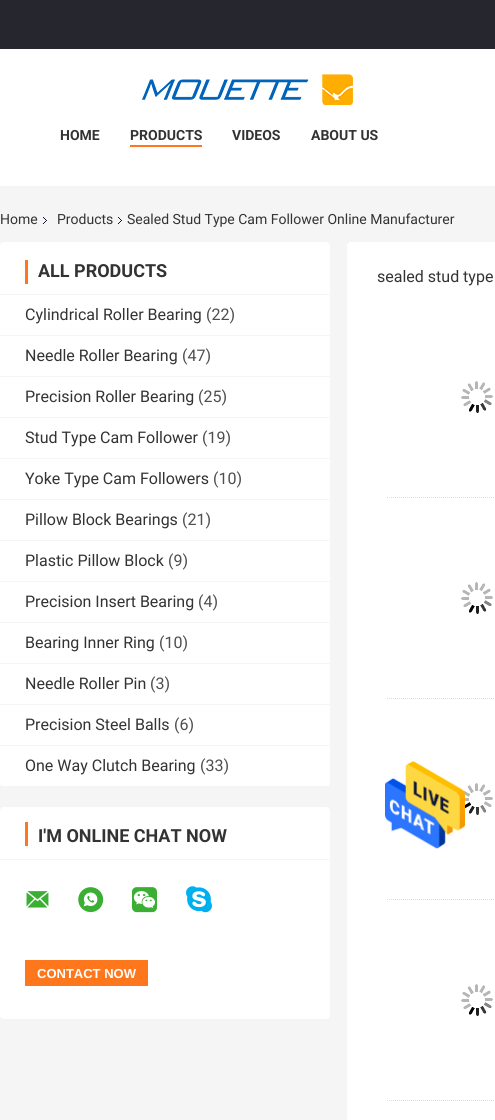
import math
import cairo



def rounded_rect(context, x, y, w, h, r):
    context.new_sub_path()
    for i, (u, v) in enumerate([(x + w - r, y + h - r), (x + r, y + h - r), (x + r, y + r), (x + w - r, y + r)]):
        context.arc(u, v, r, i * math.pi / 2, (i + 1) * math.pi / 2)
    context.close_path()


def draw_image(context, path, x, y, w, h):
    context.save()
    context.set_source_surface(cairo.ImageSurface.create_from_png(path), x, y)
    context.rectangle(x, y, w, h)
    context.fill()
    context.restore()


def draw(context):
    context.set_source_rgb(245 / 255, 245 / 255, 245 / 255)
    context.paint()
    context.set_source_rgb(1, 1, 1)
    context.rectangle(0, 49, 495, 137)
    context.fill()
    context.set_source_rgb(38 / 255, 38 / 255, 46 / 255)
    context.rectangle(0, 0, 495, 49)
    context.fill()
    draw_image(context, "images/1.png", 142, 74, 211, 32)
    context.set_source_rgb(1, 119 / 255, 28 / 255)
    context.rectangle(130, 145, 72, 2)
    context.fill()
    draw_image(context, "images/2.png", 43, 217, 4, 7)
    draw_image(context, "images/2.png", 118, 217, 4, 7)
    context.set_source_rgb(1, 1, 1)
    rounded_rect(context, 0, 242, 330, 545, 4)
    context.fill()
    context.set_source_rgb(245 / 255, 245 / 255, 245 / 255)
    context.rectangle(0, 294, 330, 1)
    context.fill()
    context.set_source_rgb(1, 119 / 255, 28 / 255)
    context.rectangle(25, 260, 3, 24)
    context.fill()
    context.set_source_rgb(245 / 255, 245 / 255, 245 / 255)
    context.rectangle(0, 335, 330, 1)
    context.fill()
    context.rectangle(0, 376, 330, 1)
    context.fill()
    context.rectangle(0, 417, 330, 1)
    context.fill()
    context.rectangle(0, 458, 330, 1)
    context.fill()
    context.rectangle(0, 499, 330, 1)
    context.fill()
    context.rectangle(0, 540, 330, 1)
    context.fill()
    context.rectangle(0, 581, 330, 1)
    context.fill()
    context.rectangle(0, 622, 330, 1)
    context.fill()
    context.rectangle(0, 663, 330, 1)
    context.fill()
    context.rectangle(0, 704, 330, 1)
    context.fill()
    context.rectangle(0, 745, 330, 1)
    context.fill()
    context.rectangle(0, 786, 330, 1)
    context.fill()
    context.set_source_rgb(1, 1, 1)
    rounded_rect(context, 0, 807, 330, 212, 4)
    context.fill()
    context.set_source_rgb(245 / 255, 245 / 255, 245 / 255)
    context.rectangle(0, 859, 330, 1)
    context.fill()
    context.set_source_rgb(1, 119 / 255, 28 / 255)
    context.rectangle(25, 822, 3, 24)
    context.fill()
    draw_image(context, "images/3.png", 26, 891, 23, 17)
    draw_image(context, "images/4.png", 78, 887, 26, 26)
    draw_image(context, "images/5.png", 132, 887, 25, 26)
    draw_image(context, "images/6.png", 186, 886, 26, 27)
    context.rectangle(25, 960, 123, 26)
    context.fill()
    context.set_source_rgb(1, 1, 1)
    rounded_rect(context, 347, 242, 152, 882, 4)
    context.fill()
    context.new_path()
    context.move_to(387, 497.5)
    context.line_to(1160, 497.5)
    context.set_source_rgb(220 / 255, 220 / 255, 220 / 255)
    context.set_line_width(1)
    context.set_dash([1, 1])
    context.stroke()
    draw_image(context, "images/7.png", 461, 381, 32, 32)
    context.new_path()
    context.move_to(387, 698.5)
    context.line_to(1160, 698.5)
    context.stroke()
    draw_image(context, "images/7.png", 461, 582, 32, 32)
    context.new_path()
    context.move_to(387, 899.5)
    context.line_to(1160, 899.5)
    context.stroke()
    draw_image(context, "images/8.png", 463, 783, 30, 32)
    context.new_path()
    context.move_to(387, 1100.5)
    context.line_to(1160, 1100.5)
    context.stroke()
    draw_image(context, "images/7.png", 461, 984, 32, 32)
    draw_image(context, "images/9.png", 385, 761, 80, 88)
    context.select_font_face("Roboto", cairo.FontSlant.NORMAL, cairo.FontWeight.BOLD)
    context.set_font_size(14)
    context.set_source_rgb(51 / 255, 51 / 255, 51 / 255)
    context.move_to(60, 140)
    context.show_text("HOME")
    context.move_to(130, 140)
    context.show_text("PRODUCTS")
    context.move_to(232, 140)
    context.show_text("VIDEOS")
    context.move_to(311, 140)
    context.show_text("ABOUT US")
    context.select_font_face("Roboto")
    context.move_to(0, 224)
    context.show_text("Home")
    context.move_to(57, 224)
    context.show_text("Products")
    context.move_to(127, 224)
    context.show_text("Sealed Stud Type Cam Follower Online Manufacturer")
    context.select_font_face("Roboto", cairo.FontSlant.NORMAL, cairo.FontWeight.BOLD)
    context.set_font_size(18)
    context.move_to(38, 277)
    context.show_text("ALL PRODUCTS")
    context.select_font_face("Roboto")
    context.set_font_size(16)
    context.move_to(25, 320)
    context.show_text("Cylindrical Roller Bearing")
    context.set_source_rgb(78 / 255, 78 / 255, 78 / 255)
    context.move_to(206, 320)
    context.show_text("(22)")
    context.set_source_rgb(51 / 255, 51 / 255, 51 / 255)
    context.move_to(25, 361)
    context.show_text("Needle Roller Bearing")
    context.set_source_rgb(78 / 255, 78 / 255, 78 / 255)
    context.move_to(182, 361)
    context.show_text("(47)")
    context.set_source_rgb(51 / 255, 51 / 255, 51 / 255)
    context.move_to(25, 402)
    context.show_text("Precision Roller Bearing")
    context.set_source_rgb(78 / 255, 78 / 255, 78 / 255)
    context.move_to(198, 402)
    context.show_text("(25)")
    context.set_source_rgb(51 / 255, 51 / 255, 51 / 255)
    context.move_to(25, 443)
    context.show_text("Stud Type Cam Follower")
    context.set_source_rgb(78 / 255, 78 / 255, 78 / 255)
    context.move_to(202, 443)
    context.show_text("(19)")
    context.set_source_rgb(51 / 255, 51 / 255, 51 / 255)
    context.move_to(25, 484)
    context.show_text("Yoke Type Cam Followers")
    context.set_source_rgb(78 / 255, 78 / 255, 78 / 255)
    context.move_to(213, 484)
    context.show_text("(10)")
    context.set_source_rgb(51 / 255, 51 / 255, 51 / 255)
    context.move_to(25, 525)
    context.show_text("Pillow Block Bearings")
    context.set_source_rgb(78 / 255, 78 / 255, 78 / 255)
    context.move_to(182, 525)
    context.show_text("(21)")
    context.set_source_rgb(51 / 255, 51 / 255, 51 / 255)
    context.move_to(25, 566)
    context.show_text("Plastic Pillow Block")
    context.set_source_rgb(78 / 255, 78 / 255, 78 / 255)
    context.move_to(168, 566)
    context.show_text("(9)")
    context.set_source_rgb(51 / 255, 51 / 255, 51 / 255)
    context.move_to(25, 607)
    context.show_text("Precision Insert Bearing")
    context.set_source_rgb(78 / 255, 78 / 255, 78 / 255)
    context.move_to(198, 607)
    context.show_text("(4)")
    context.set_source_rgb(51 / 255, 51 / 255, 51 / 255)
    context.move_to(25, 648)
    context.show_text("Bearing Inner Ring")
    context.set_source_rgb(78 / 255, 78 / 255, 78 / 255)
    context.move_to(159, 648)
    context.show_text("(10)")
    context.set_source_rgb(51 / 255, 51 / 255, 51 / 255)
    context.move_to(25, 689)
    context.show_text("Needle Roller Pin")
    context.set_source_rgb(78 / 255, 78 / 255, 78 / 255)
    context.move_to(150, 689)
    context.show_text("(3)")
    context.set_source_rgb(51 / 255, 51 / 255, 51 / 255)
    context.move_to(25, 730)
    context.show_text("Precision Steel Balls")
    context.set_source_rgb(78 / 255, 78 / 255, 78 / 255)
    context.move_to(174, 730)
    context.show_text("(6)")
    context.set_source_rgb(51 / 255, 51 / 255, 51 / 255)
    context.move_to(25, 771)
    context.show_text("One Way Clutch Bearing")
    context.set_source_rgb(78 / 255, 78 / 255, 78 / 255)
    context.move_to(200, 771)
    context.show_text("(33)")
    context.select_font_face("Roboto", cairo.FontSlant.NORMAL, cairo.FontWeight.BOLD)
    context.set_font_size(18)
    context.set_source_rgb(51 / 255, 51 / 255, 51 / 255)
    context.move_to(38, 842)
    context.show_text("I'M ONLINE CHAT NOW")
    context.select_font_face("Liberation Sans", cairo.FontSlant.NORMAL, cairo.FontWeight.BOLD)
    context.set_font_size(13)
    context.set_source_rgb(1, 1, 1)
    context.move_to(37, 978)
    context.show_text("CONTACT NOW")
    context.select_font_face("Roboto")
    context.set_font_size(16)
    context.set_source_rgb(51 / 255, 51 / 255, 51 / 255)
    context.move_to(377, 282)
    context.show_text("sealed stud type")


surface = cairo.ImageSurface(cairo.Format.RGB24, 495, 1120)
context = cairo.Context(surface)
options = cairo.FontOptions()
options.set_hint_metrics(cairo.HintMetrics.OFF)
options.set_hint_style(cairo.HintStyle.NONE)
context.set_font_options(options)
context.set_miter_limit(4)
draw(context)
surface.write_to_png("out.png")
